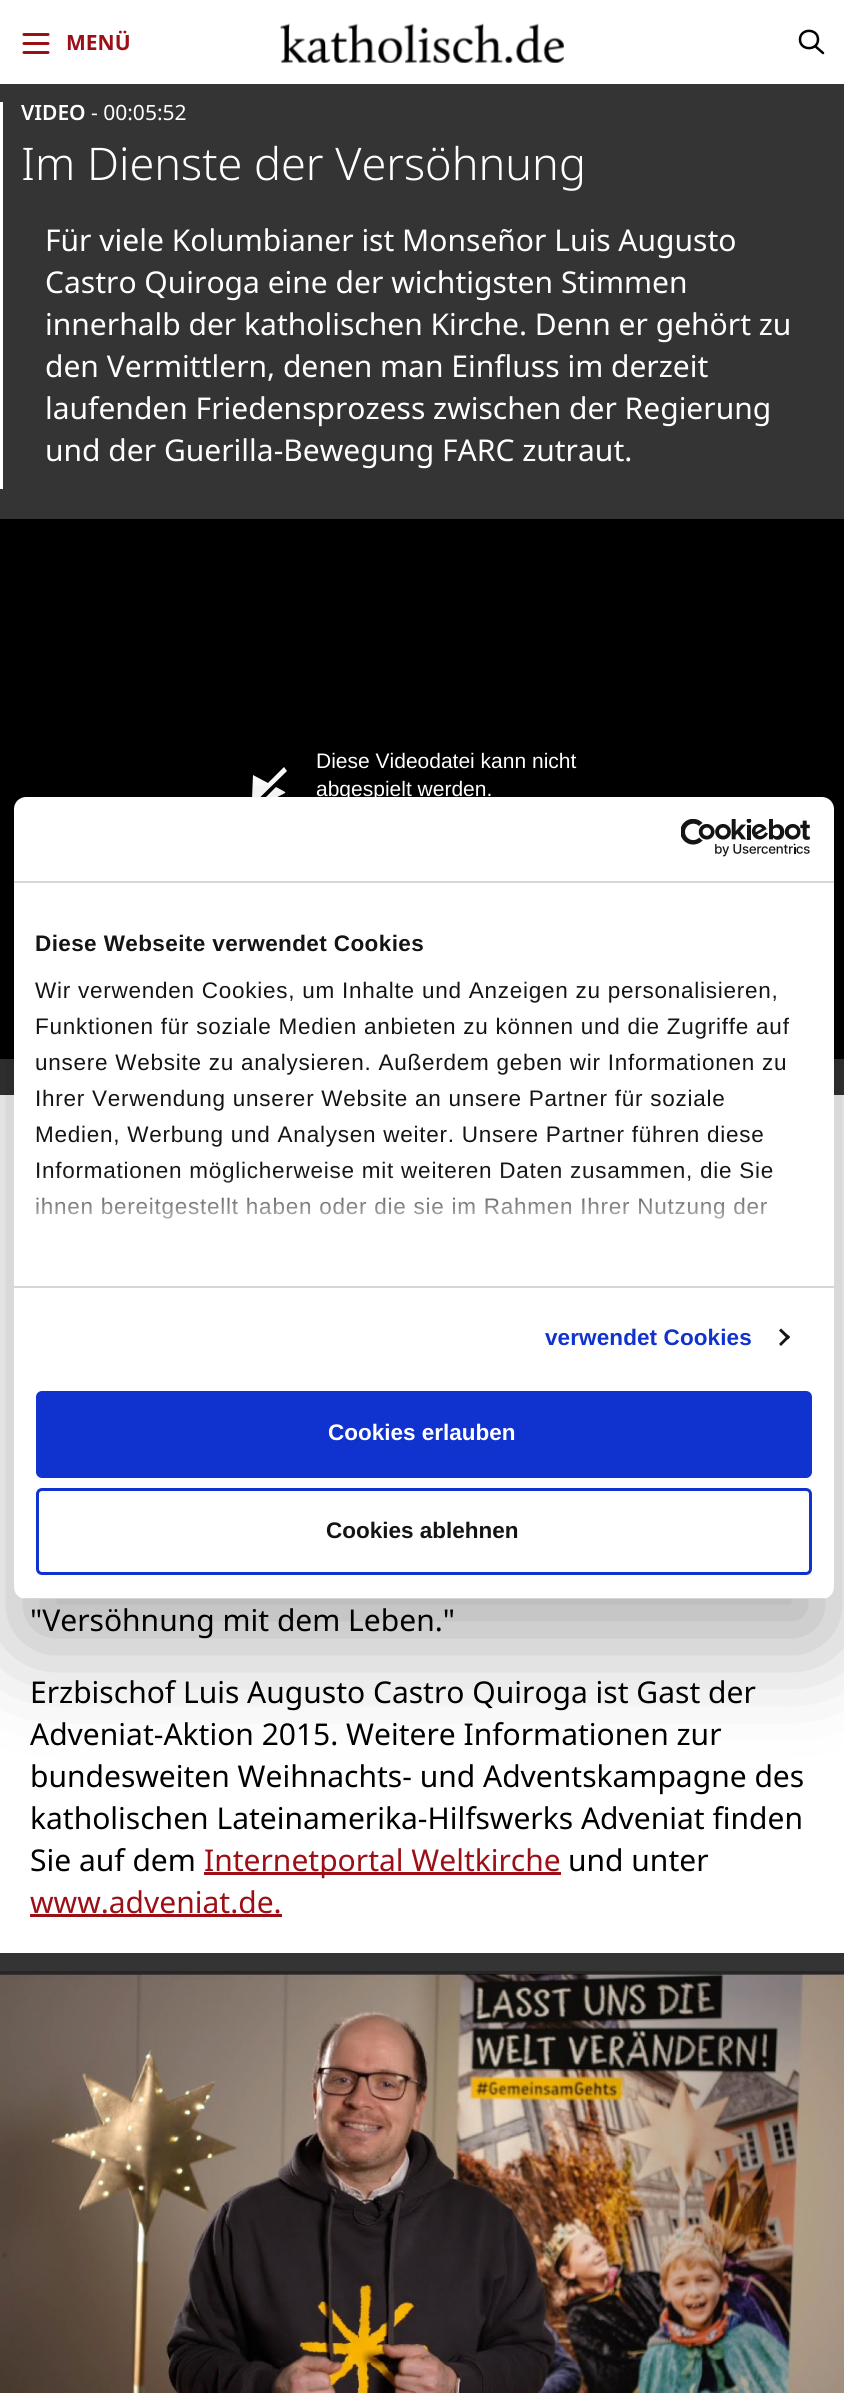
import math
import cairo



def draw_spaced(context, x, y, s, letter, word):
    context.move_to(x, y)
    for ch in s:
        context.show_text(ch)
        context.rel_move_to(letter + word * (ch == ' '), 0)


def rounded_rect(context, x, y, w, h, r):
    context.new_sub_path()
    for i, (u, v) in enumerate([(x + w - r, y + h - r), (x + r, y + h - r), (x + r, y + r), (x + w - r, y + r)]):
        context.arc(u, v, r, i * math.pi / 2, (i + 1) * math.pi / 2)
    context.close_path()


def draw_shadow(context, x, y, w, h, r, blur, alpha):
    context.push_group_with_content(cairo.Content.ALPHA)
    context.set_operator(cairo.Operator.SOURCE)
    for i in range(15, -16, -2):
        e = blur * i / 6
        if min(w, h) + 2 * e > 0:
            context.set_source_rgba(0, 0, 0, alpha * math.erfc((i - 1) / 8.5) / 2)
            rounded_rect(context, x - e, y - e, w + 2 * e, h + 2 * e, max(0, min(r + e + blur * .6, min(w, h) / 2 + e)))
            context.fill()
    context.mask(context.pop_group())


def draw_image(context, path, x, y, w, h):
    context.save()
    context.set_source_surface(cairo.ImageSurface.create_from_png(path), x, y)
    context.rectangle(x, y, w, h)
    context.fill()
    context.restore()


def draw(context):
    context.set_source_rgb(1, 1, 1)
    context.paint()
    context.new_path()
    context.move_to(24, 34.5)
    context.line_to(48, 34.5)
    context.move_to(24, 43.5)
    context.line_to(48, 43.5)
    context.move_to(24, 52.5)
    context.line_to(48, 52.5)
    context.set_source_rgb(156 / 255, 15 / 255, 22 / 255)
    context.set_line_width(3)
    context.set_line_cap(cairo.LineCap.ROUND)
    context.set_line_join(cairo.LineJoin.ROUND)
    context.stroke()
    draw_image(context, "images/1.png", 280, 23, 284, 40)
    context.new_path()
    context.move_to(823, 53)
    context.line_to(815, 46)
    context.move_to(818, 39.5)
    context.curve_to(818, 51, 800, 51, 800, 39.5)
    context.curve_to(800, 28, 818, 28, 818, 39.5)
    context.close_path()
    context.set_source_rgb(0, 0, 0)
    context.set_line_width(2.5)
    context.stroke()
    context.set_source_rgb(52 / 255, 52 / 255, 52 / 255)
    context.rectangle(0, 84, 844, 1887)
    context.fill()
    context.set_source_rgb(1, 1, 1)
    context.rectangle(0, 102, 3, 387)
    context.fill()
    context.set_source_rgb(0, 0, 0)
    context.rectangle(0, 519, 844, 540)
    context.fill()
    context.set_source_rgb(1, 1, 1)
    context.new_path()
    context.move_to(285, 793)
    context.line_to(254, 809)
    context.line_to(276, 787)
    context.curve_to(285, 792, 286, 792, 285, 793)
    context.close_path()
    context.move_to(284, 767)
    context.line_to(268, 783)
    context.line_to(253, 775)
    context.line_to(252, 799)
    context.line_to(242, 809)
    context.line_to(245, 812)
    context.line_to(287, 771)
    context.close_path()
    context.fill()
    context.rectangle(0, 1095, 844, 858)
    context.fill()
    context.set_source_rgb(156 / 255, 15 / 255, 22 / 255)
    context.rectangle(204, 1872, 357, 3)
    context.fill()
    context.rectangle(30, 1914, 252, 3)
    context.fill()
    context.set_source_rgb(38 / 255, 38 / 255, 38 / 255)
    context.rectangle(0, 1971, 844, 3)
    context.fill()
    draw_image(context, "images/2.png", 0, 1974, 844, 419)
    context.set_source_rgb(0, 0, 0)
    draw_shadow(context, 14, 845, 820, 802, 12, 51, 0.3)
    context.set_source_rgb(1, 1, 1)
    rounded_rect(context, 14, 797, 820, 802, 12)
    context.fill()
    context.set_source_rgb(214 / 255, 214 / 255, 214 / 255)
    context.rectangle(14, 881, 820, 2)
    context.fill()
    draw_image(context, "images/3.png", 681, 819, 130, 38)
    context.rectangle(14, 1286, 820, 2)
    context.fill()
    context.set_source_rgb(20 / 255, 20 / 255, 20 / 255)
    context.new_path()
    context.move_to(781, 1328.5)
    context.line_to(790, 1337)
    context.line_to(788, 1339.5)
    context.line_to(779, 1330.5)
    context.close_path()
    context.fill()
    context.new_path()
    context.move_to(788, 1335)
    context.line_to(790, 1337)
    context.line_to(781, 1346)
    context.line_to(779, 1344)
    context.close_path()
    context.fill()
    context.save()
    rounded_rect(context, 14, 797, 820, 802, 12)
    context.clip()
    context.set_source_rgb(214 / 255, 214 / 255, 214 / 255)
    context.rectangle(14, 1598, 820, 1)
    context.fill()
    context.restore()
    context.set_source_rgb(16 / 255, 50 / 255, 207 / 255)
    rounded_rect(context, 37.5, 1392.5, 773, 84, 4.5)
    context.fill_preserve()
    context.set_line_width(3)
    context.set_line_cap(cairo.LineCap.BUTT)
    context.set_line_join(cairo.LineJoin.MITER)
    context.stroke()
    rounded_rect(context, 37.5, 1489.5, 773, 84, 4.5)
    context.stroke()
    context.select_font_face("Noto Sans", cairo.FontSlant.NORMAL, cairo.FontWeight.BOLD)
    context.set_font_size(21)
    context.set_source_rgb(156 / 255, 15 / 255, 22 / 255)
    context.move_to(66, 50)
    context.show_text("MENÜ")
    context.select_font_face("Noto Sans SemiBold")
    context.set_source_rgb(1, 1, 1)
    context.move_to(21, 120)
    context.show_text("VIDEO")
    context.select_font_face("Noto Sans")
    context.move_to(91, 120)
    context.show_text("- 00:05:52")
    context.select_font_face("Noto Sans Light")
    context.set_font_size(45)
    context.move_to(21, 180)
    context.show_text("Im Dienste der Versöhnung")
    context.select_font_face("Noto Sans")
    context.set_font_size(30)
    context.move_to(45, 251)
    context.show_text("Für viele Kolumbianer ist Monseñor Luis Augusto")
    context.move_to(45, 293)
    context.show_text("Castro Quiroga eine der wichtigsten Stimmen")
    context.move_to(45, 335)
    context.show_text("innerhalb der katholischen Kirche. Denn er gehört zu")
    context.move_to(45, 377)
    context.show_text("den Vermittlern, denen man Einfluss im derzeit")
    context.move_to(45, 419)
    context.show_text("laufenden Friedensprozess zwischen der Regierung")
    context.move_to(45, 461)
    context.show_text("und der Guerilla-Bewegung FARC zutraut.")
    context.select_font_face("Liberation Sans")
    context.set_font_size(21)
    context.move_to(316, 768)
    context.show_text("Diese Videodatei kann nicht")
    context.move_to(316, 796)
    context.show_text("abgespielt werden.")
    context.select_font_face("Noto Sans")
    context.set_font_size(30)
    context.set_source_rgb(0, 0, 0)
    context.move_to(30, 1631)
    context.show_text("\"Versöhnung mit dem Leben.\"")
    context.move_to(30, 1703)
    context.show_text("Erzbischof Luis Augusto Castro Quiroga ist Gast der")
    context.move_to(30, 1745)
    context.show_text("Adveniat-Aktion 2015. Weitere Informationen zur")
    context.move_to(30, 1787)
    context.show_text("bundesweiten Weihnachts- und Adventskampagne des")
    context.move_to(30, 1829)
    context.show_text("katholischen Lateinamerika-Hilfswerks Adveniat finden")
    context.move_to(30, 1871)
    context.show_text("Sie auf dem")
    context.set_source_rgb(156 / 255, 15 / 255, 22 / 255)
    context.move_to(204, 1871)
    context.show_text("Internetportal Weltkirche")
    context.set_source_rgb(0, 0, 0)
    context.move_to(568, 1871)
    context.show_text("und unter")
    context.set_source_rgb(156 / 255, 15 / 255, 22 / 255)
    context.move_to(30, 1913)
    context.show_text("www.adveniat.de.")
    context.select_font_face("Liberation Sans", cairo.FontSlant.NORMAL, cairo.FontWeight.BOLD)
    context.set_font_size(22.5)
    context.set_source_rgb(20 / 255, 20 / 255, 20 / 255)
    draw_spaced(context, 35, 951, "Diese Webseite verwendet Cookies", 0.4, 0)
    context.select_font_face("Liberation Sans")
    draw_spaced(context, 35, 998, "Wir verwenden Cookies, um Inhalte und Anzeigen zu personalisieren,", 0.75, 0)
    draw_spaced(context, 35, 1034, "Funktionen für soziale Medien anbieten zu können und die Zugriffe auf", 0.75, 0)
    draw_spaced(context, 35, 1070, "unsere Website zu analysieren. Außerdem geben wir Informationen zu", 0.75, 0)
    draw_spaced(context, 35, 1106, "Ihrer Verwendung unserer Website an unsere Partner für soziale", 0.75, 0)
    draw_spaced(context, 35, 1142, "Medien, Werbung und Analysen weiter. Unsere Partner führen diese", 0.75, 0)
    draw_spaced(context, 35, 1178, "Informationen möglicherweise mit weiteren Daten zusammen, die Sie", 0.75, 0)
    draw_spaced(context, 35, 1214, "ihnen bereitgestellt haben oder die sie im Rahmen Ihrer Nutzung der", 0.75, 0)
    gradient = cairo.LinearGradient(413, 1285, 413, 1172)
    gradient.add_color_stop_rgba(0, 1, 1, 1, 1)
    gradient.add_color_stop_rgba(0.5, 1, 1, 1, 0.8)
    gradient.add_color_stop_rgba(1, 1, 1, 1, 0)
    context.set_source(gradient)
    context.rectangle(36, 1174, 736, 45)
    context.fill()
    context.select_font_face("Liberation Sans", cairo.FontSlant.NORMAL, cairo.FontWeight.BOLD)
    context.set_source_rgb(16 / 255, 50 / 255, 207 / 255)
    draw_spaced(context, 545, 1345, "verwendet Cookies", 0.1, 0)
    context.set_source_rgb(1, 1, 1)
    context.move_to(328, 1440)
    context.show_text("Cookies erlauben")
    context.set_source_rgb(20 / 255, 20 / 255, 20 / 255)
    context.move_to(326, 1538)
    context.show_text("Cookies ablehnen")


surface = cairo.ImageSurface(cairo.Format.RGB24, 844, 2393)
context = cairo.Context(surface)
options = cairo.FontOptions()
options.set_hint_metrics(cairo.HintMetrics.OFF)
options.set_hint_style(cairo.HintStyle.NONE)
context.set_font_options(options)
context.set_miter_limit(4)
draw(context)
surface.write_to_png("out.png")
